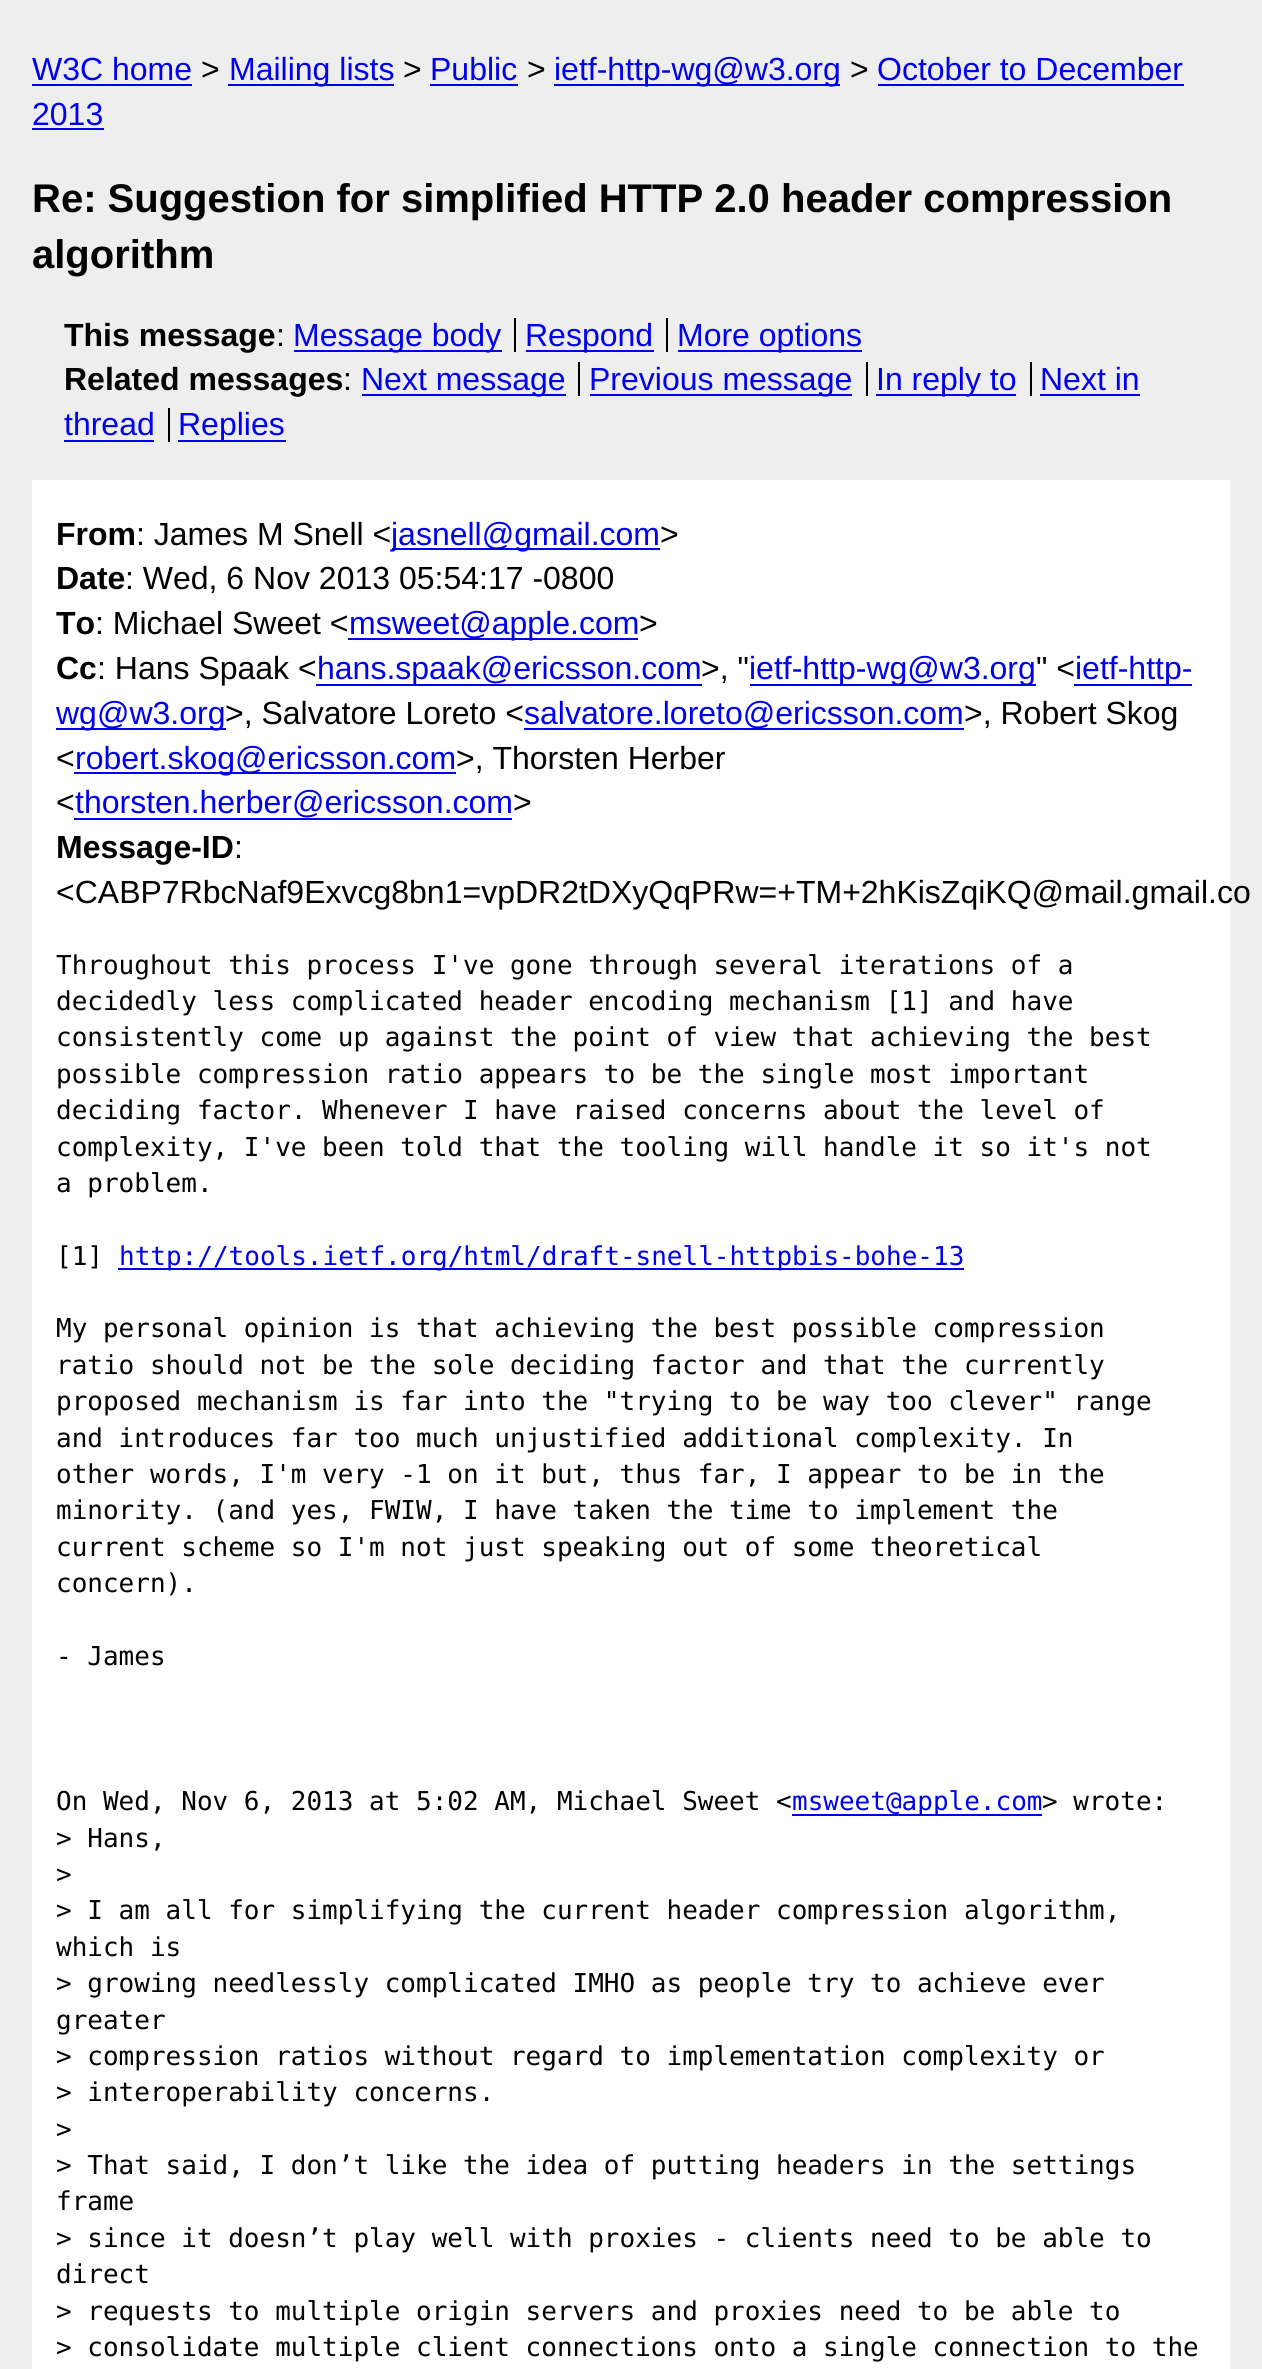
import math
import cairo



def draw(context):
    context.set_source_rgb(238 / 255, 238 / 255, 238 / 255)
    context.paint()
    context.set_source_rgb(0, 0, 238 / 255)
    context.rectangle(32, 84, 160, 2)
    context.fill()
    context.rectangle(228, 84, 166, 2)
    context.fill()
    context.rectangle(430, 84, 88, 2)
    context.fill()
    context.rectangle(554, 84, 286, 2)
    context.fill()
    context.rectangle(878, 84, 306, 2)
    context.fill()
    context.rectangle(32, 128, 72, 2)
    context.fill()
    context.rectangle(294, 350, 208, 2)
    context.fill()
    context.set_source_rgb(0, 0, 0)
    context.rectangle(514, 318, 2, 34)
    context.fill()
    context.set_source_rgb(0, 0, 238 / 255)
    context.rectangle(526, 350, 128, 2)
    context.fill()
    context.set_source_rgb(0, 0, 0)
    context.rectangle(666, 318, 2, 34)
    context.fill()
    context.set_source_rgb(0, 0, 238 / 255)
    context.rectangle(678, 350, 184, 2)
    context.fill()
    context.rectangle(362, 394, 204, 2)
    context.fill()
    context.set_source_rgb(0, 0, 0)
    context.rectangle(578, 362, 2, 34)
    context.fill()
    context.set_source_rgb(0, 0, 238 / 255)
    context.rectangle(590, 394, 262, 2)
    context.fill()
    context.set_source_rgb(0, 0, 0)
    context.rectangle(866, 362, 2, 34)
    context.fill()
    context.set_source_rgb(0, 0, 238 / 255)
    context.rectangle(876, 394, 140, 2)
    context.fill()
    context.set_source_rgb(0, 0, 0)
    context.rectangle(1030, 362, 2, 34)
    context.fill()
    context.set_source_rgb(0, 0, 238 / 255)
    context.rectangle(1040, 394, 100, 2)
    context.fill()
    context.rectangle(64, 440, 90, 2)
    context.fill()
    context.set_source_rgb(0, 0, 0)
    context.rectangle(168, 408, 2, 34)
    context.fill()
    context.set_source_rgb(0, 0, 238 / 255)
    context.rectangle(178, 440, 108, 2)
    context.fill()
    context.set_source_rgb(1, 1, 1)
    context.rectangle(32, 480, 1198, 1889)
    context.fill()
    context.set_source_rgb(0, 0, 238 / 255)
    context.rectangle(392, 548, 268, 2)
    context.fill()
    context.rectangle(348, 638, 290, 2)
    context.fill()
    context.rectangle(316, 684, 386, 2)
    context.fill()
    context.rectangle(750, 684, 286, 2)
    context.fill()
    context.rectangle(1074, 684, 118, 2)
    context.fill()
    context.rectangle(56, 728, 170, 2)
    context.fill()
    context.rectangle(524, 728, 440, 2)
    context.fill()
    context.rectangle(74, 772, 382, 2)
    context.fill()
    context.rectangle(74, 818, 438, 2)
    context.fill()
    context.rectangle(118, 1268, 846, 2)
    context.fill()
    context.rectangle(792, 1814, 250, 2)
    context.fill()
    context.select_font_face("Liberation Sans")
    context.set_font_size(32)
    context.move_to(32, 80)
    context.show_text("W3C home")
    context.set_source_rgb(0, 0, 0)
    context.move_to(201, 80)
    context.show_text(">")
    context.set_source_rgb(0, 0, 238 / 255)
    context.move_to(229, 80)
    context.show_text("Mailing lists")
    context.set_source_rgb(0, 0, 0)
    context.move_to(403, 80)
    context.show_text(">")
    context.set_source_rgb(0, 0, 238 / 255)
    context.move_to(430, 80)
    context.show_text("Public")
    context.set_source_rgb(0, 0, 0)
    context.move_to(527, 80)
    context.show_text(">")
    context.set_source_rgb(0, 0, 238 / 255)
    context.move_to(554, 80)
    context.show_text("ietf-http-wg@w3.org")
    context.set_source_rgb(0, 0, 0)
    context.move_to(850, 80)
    context.show_text(">")
    context.set_source_rgb(0, 0, 238 / 255)
    context.move_to(877, 80)
    context.show_text("October to December")
    context.move_to(32, 125)
    context.show_text("2013")
    context.select_font_face("Liberation Sans", cairo.FontSlant.NORMAL, cairo.FontWeight.BOLD)
    context.set_font_size(40)
    context.set_source_rgb(0, 0, 0)
    context.move_to(32, 212)
    context.show_text("Re: Suggestion for simplified HTTP 2.0 header compression")
    context.move_to(32, 268)
    context.show_text("algorithm")
    context.set_font_size(32)
    context.move_to(64, 346)
    context.show_text("This message")
    context.select_font_face("Liberation Sans")
    context.move_to(276, 346)
    context.show_text(":")
    context.set_source_rgb(0, 0, 238 / 255)
    context.move_to(293, 346)
    context.show_text("Message body")
    context.move_to(525, 346)
    context.show_text("Respond")
    context.move_to(677, 346)
    context.show_text("More options")
    context.select_font_face("Liberation Sans", cairo.FontSlant.NORMAL, cairo.FontWeight.BOLD)
    context.set_source_rgb(0, 0, 0)
    context.move_to(64, 390)
    context.show_text("Related messages")
    context.select_font_face("Liberation Sans")
    context.move_to(343, 390)
    context.show_text(":")
    context.set_source_rgb(0, 0, 238 / 255)
    context.move_to(361, 390)
    context.show_text("Next message")
    context.move_to(589, 390)
    context.show_text("Previous message")
    context.move_to(876, 390)
    context.show_text("In reply to")
    context.move_to(1040, 390)
    context.show_text("Next in")
    context.move_to(64, 435)
    context.show_text("thread")
    context.move_to(178, 435)
    context.show_text("Replies")
    context.select_font_face("Liberation Sans", cairo.FontSlant.NORMAL, cairo.FontWeight.BOLD)
    context.set_source_rgb(0, 0, 0)
    context.move_to(56, 545)
    context.show_text("From")
    context.select_font_face("Liberation Sans")
    context.move_to(136, 545)
    context.show_text(": James M Snell <")
    context.set_source_rgb(0, 0, 238 / 255)
    context.move_to(391, 545)
    context.show_text("jasnell@gmail.com")
    context.set_source_rgb(0, 0, 0)
    context.move_to(660, 545)
    context.show_text(">")
    context.select_font_face("Liberation Sans", cairo.FontSlant.NORMAL, cairo.FontWeight.BOLD)
    context.move_to(56, 589)
    context.show_text("Date")
    context.select_font_face("Liberation Sans")
    context.move_to(125, 589)
    context.show_text(": Wed, 6 Nov 2013 05:54:17 -0800")
    context.select_font_face("Liberation Sans", cairo.FontSlant.NORMAL, cairo.FontWeight.BOLD)
    context.move_to(56, 634)
    context.show_text("To")
    context.select_font_face("Liberation Sans")
    context.move_to(95, 634)
    context.show_text(": Michael Sweet <")
    context.set_source_rgb(0, 0, 238 / 255)
    context.move_to(349, 634)
    context.show_text("msweet@apple.com")
    context.set_source_rgb(0, 0, 0)
    context.move_to(639, 634)
    context.show_text(">")
    context.select_font_face("Liberation Sans", cairo.FontSlant.NORMAL, cairo.FontWeight.BOLD)
    context.move_to(56, 679)
    context.show_text("Cc")
    context.select_font_face("Liberation Sans")
    context.move_to(97, 679)
    context.show_text(": Hans Spaak <")
    context.set_source_rgb(0, 0, 238 / 255)
    context.move_to(317, 679)
    context.show_text("hans.spaak@ericsson.com")
    context.set_source_rgb(0, 0, 0)
    context.move_to(701, 679)
    context.show_text(">, \"")
    context.set_source_rgb(0, 0, 238 / 255)
    context.move_to(749, 679)
    context.show_text("ietf-http-wg@w3.org")
    context.set_source_rgb(0, 0, 0)
    context.move_to(1036, 679)
    context.show_text("\" <")
    context.set_source_rgb(0, 0, 238 / 255)
    context.move_to(1075, 679)
    context.show_text("ietf-http-")
    context.move_to(56, 724)
    context.show_text("wg@w3.org")
    context.set_source_rgb(0, 0, 0)
    context.move_to(225, 724)
    context.show_text(">, Salvatore Loreto <")
    context.set_source_rgb(0, 0, 238 / 255)
    context.move_to(524, 724)
    context.show_text("salvatore.loreto@ericsson.com")
    context.set_source_rgb(0, 0, 0)
    context.move_to(964, 724)
    context.show_text(">, Robert Skog")
    context.move_to(56, 769)
    context.show_text("<")
    context.set_source_rgb(0, 0, 238 / 255)
    context.move_to(75, 769)
    context.show_text("robert.skog@ericsson.com")
    context.set_source_rgb(0, 0, 0)
    context.move_to(456, 769)
    context.show_text(">, Thorsten Herber")
    context.move_to(56, 813)
    context.show_text("<")
    context.set_source_rgb(0, 0, 238 / 255)
    context.move_to(75, 813)
    context.show_text("thorsten.herber@ericsson.com")
    context.set_source_rgb(0, 0, 0)
    context.move_to(513, 813)
    context.show_text(">")
    context.select_font_face("Liberation Sans", cairo.FontSlant.NORMAL, cairo.FontWeight.BOLD)
    context.move_to(56, 858)
    context.show_text("Message-ID")
    context.select_font_face("Liberation Sans")
    context.move_to(234, 858)
    context.show_text(":")
    context.move_to(56, 903)
    context.show_text("<CABP7RbcNaf9Exvcg8bn1=vpDR2tDXyQqPRw=+TM+2hKisZqiKQ@mail.gmail.co")
    context.select_font_face("DejaVu Sans Mono")
    context.set_font_size(26)
    context.move_to(56, 974)
    context.show_text("Throughout this process I've gone through several iterations of a")
    context.move_to(56, 1010)
    context.show_text("decidedly less complicated header encoding mechanism [1] and have")
    context.move_to(56, 1046)
    context.show_text("consistently come up against the point of view that achieving the best")
    context.move_to(56, 1083)
    context.show_text("possible compression ratio appears to be the single most important")
    context.move_to(56, 1119)
    context.show_text("deciding factor. Whenever I have raised concerns about the level of")
    context.move_to(56, 1156)
    context.show_text("complexity, I've been told that the tooling will handle it so it's not")
    context.move_to(56, 1192)
    context.show_text("a problem.")
    context.move_to(56, 1265)
    context.show_text("[1]")
    context.set_source_rgb(0, 0, 238 / 255)
    context.move_to(119, 1265)
    context.show_text("http://tools.ietf.org/html/draft-snell-httpbis-bohe-13")
    context.set_source_rgb(0, 0, 0)
    context.move_to(56, 1337)
    context.show_text("My personal opinion is that achieving the best possible compression")
    context.move_to(56, 1374)
    context.show_text("ratio should not be the sole deciding factor and that the currently")
    context.move_to(56, 1410)
    context.show_text("proposed mechanism is far into the \"trying to be way too clever\" range")
    context.move_to(56, 1447)
    context.show_text("and introduces far too much unjustified additional complexity. In")
    context.move_to(56, 1483)
    context.show_text("other words, I'm very -1 on it but, thus far, I appear to be in the")
    context.move_to(56, 1519)
    context.show_text("minority. (and yes, FWIW, I have taken the time to implement the")
    context.move_to(56, 1556)
    context.show_text("current scheme so I'm not just speaking out of some theoretical")
    context.move_to(56, 1592)
    context.show_text("concern).")
    context.move_to(56, 1665)
    context.show_text("- James")
    context.move_to(56, 1810)
    context.show_text("On Wed, Nov 6, 2013 at 5:02 AM, Michael Sweet <")
    context.set_source_rgb(0, 0, 238 / 255)
    context.move_to(792, 1810)
    context.show_text("msweet@apple.com")
    context.set_source_rgb(0, 0, 0)
    context.move_to(1042, 1810)
    context.show_text("> wrote:")
    context.move_to(56, 1847)
    context.show_text("> Hans,")
    context.move_to(56, 1883)
    context.show_text(">")
    context.move_to(56, 1919)
    context.show_text("> I am all for simplifying the current header compression algorithm,")
    context.move_to(56, 1956)
    context.show_text("which is")
    context.move_to(56, 1992)
    context.show_text("> growing needlessly complicated IMHO as people try to achieve ever")
    context.move_to(56, 2029)
    context.show_text("greater")
    context.move_to(56, 2065)
    context.show_text("> compression ratios without regard to implementation complexity or")
    context.move_to(56, 2101)
    context.show_text("> interoperability concerns.")
    context.move_to(56, 2138)
    context.show_text(">")
    context.move_to(56, 2174)
    context.show_text("> That said, I don’t like the idea of putting headers in the settings")
    context.move_to(56, 2210)
    context.show_text("frame")
    context.move_to(56, 2247)
    context.show_text("> since it doesn’t play well with proxies - clients need to be able to")
    context.move_to(56, 2283)
    context.show_text("direct")
    context.move_to(56, 2320)
    context.show_text("> requests to multiple origin servers and proxies need to be able to")
    context.move_to(56, 2356)
    context.show_text("> consolidate multiple client connections onto a single connection to the")


surface = cairo.ImageSurface(cairo.Format.RGB24, 1262, 2369)
context = cairo.Context(surface)
options = cairo.FontOptions()
options.set_hint_metrics(cairo.HintMetrics.OFF)
options.set_hint_style(cairo.HintStyle.NONE)
context.set_font_options(options)
context.set_miter_limit(4)
draw(context)
surface.write_to_png("out.png")
